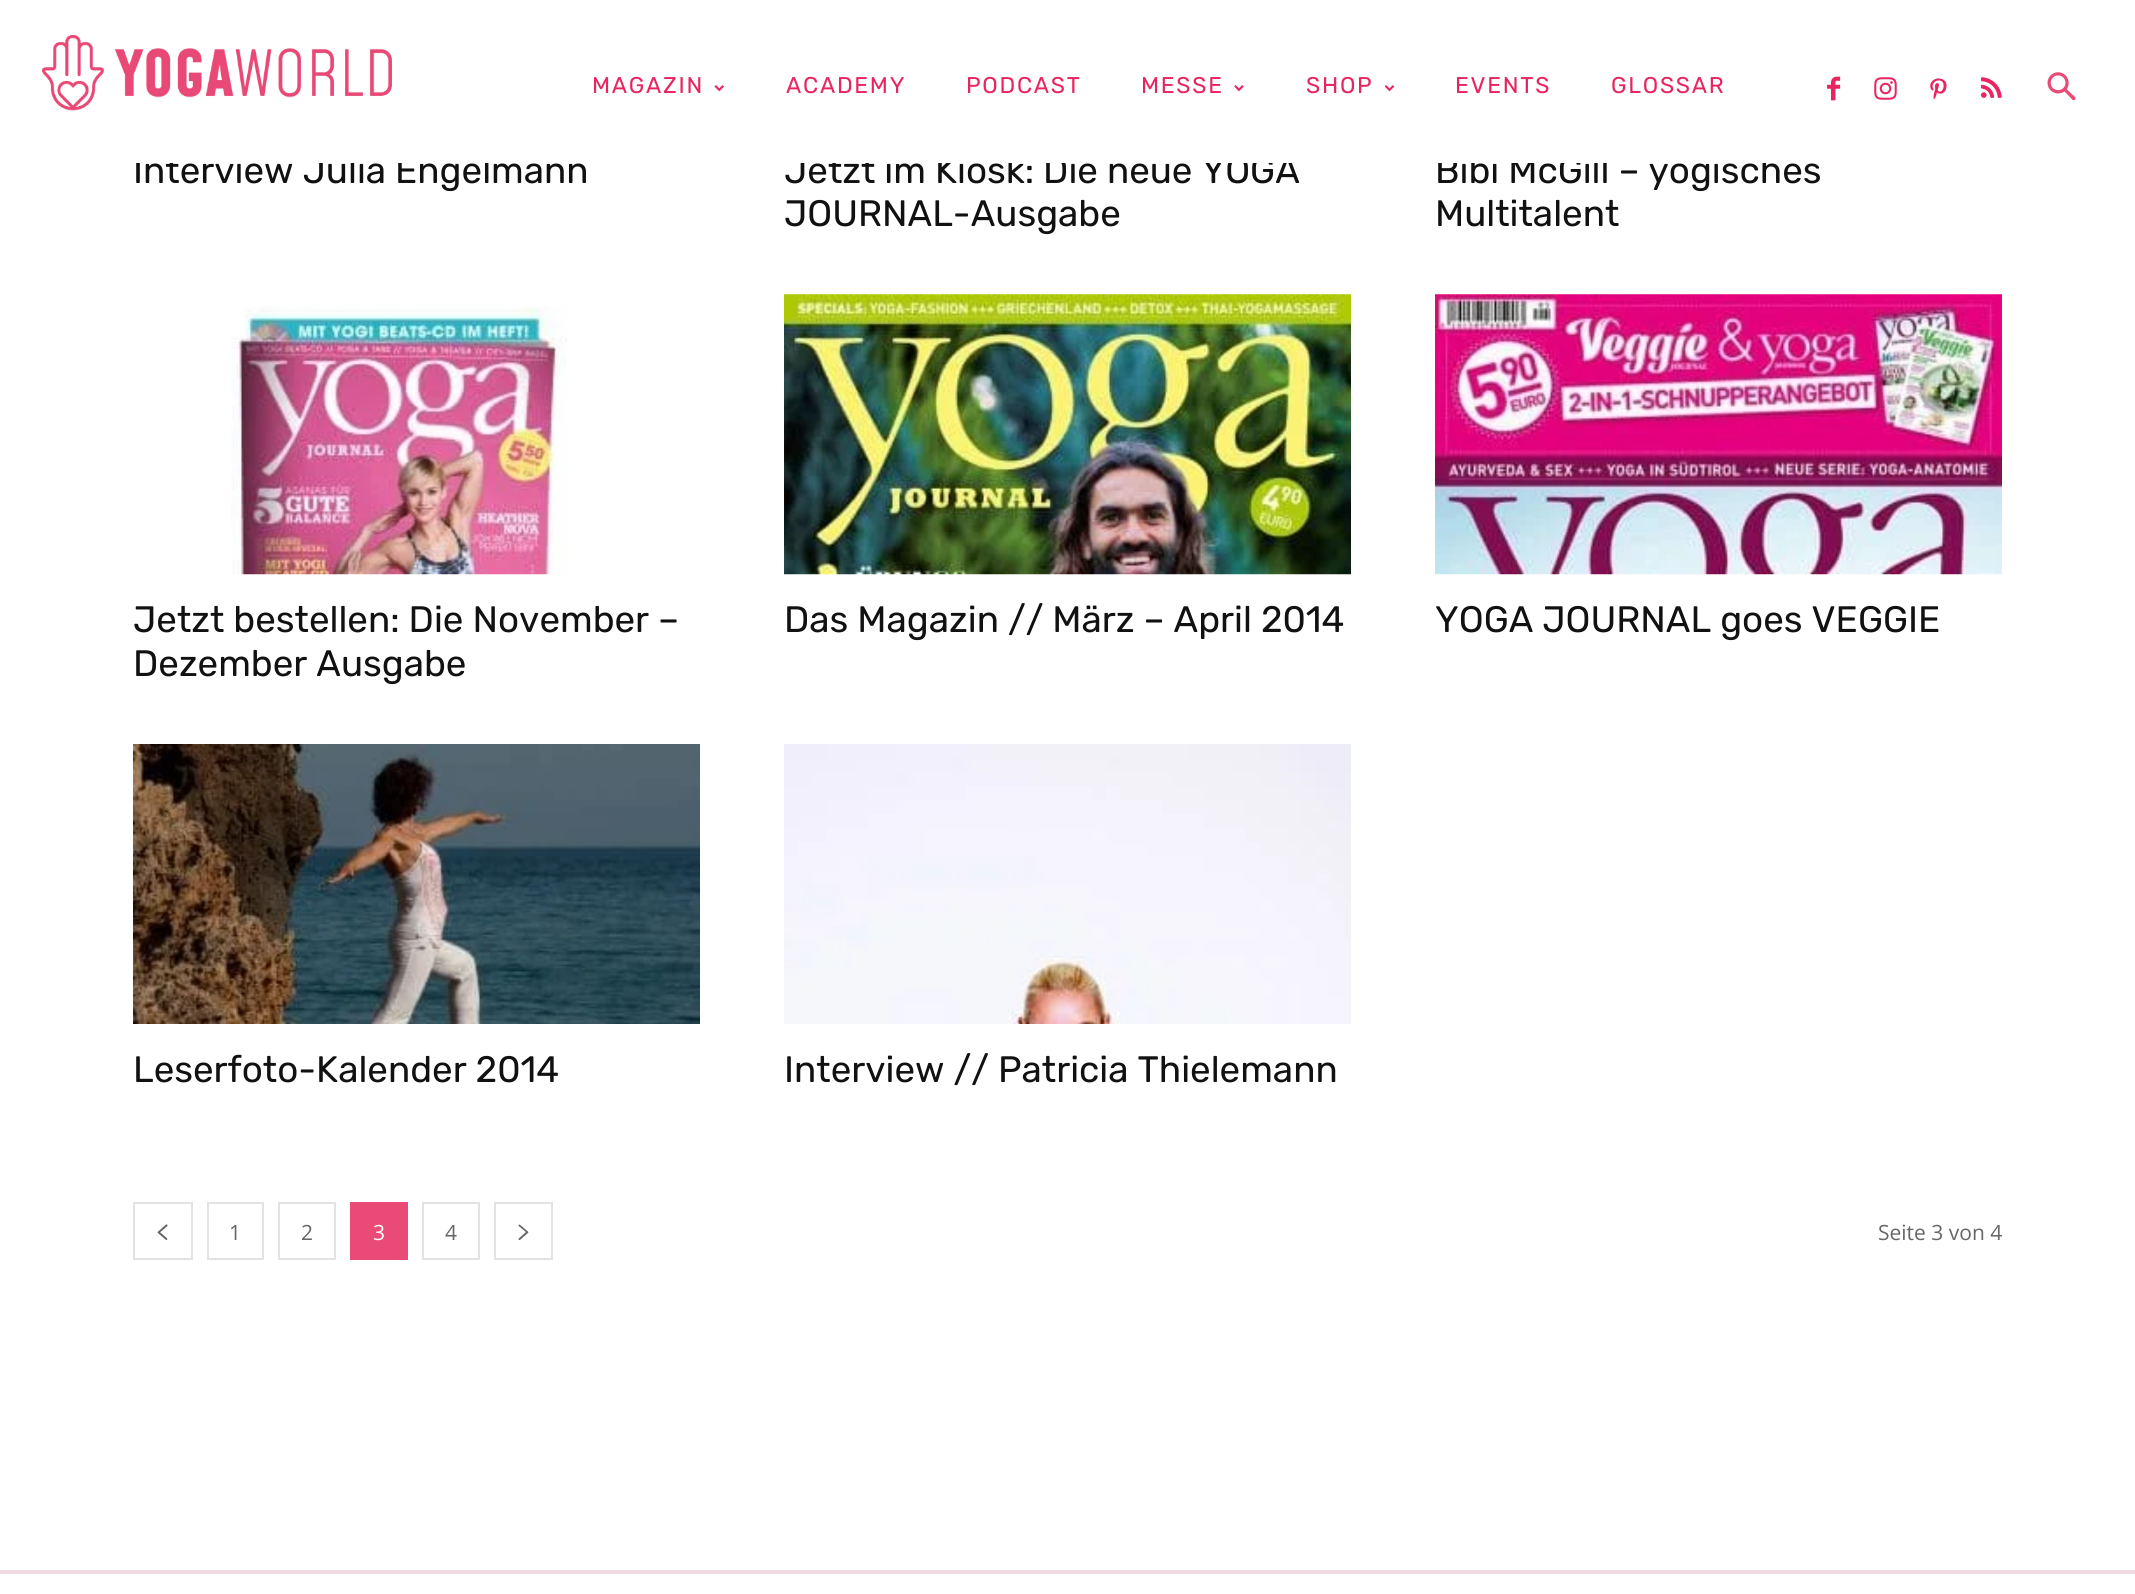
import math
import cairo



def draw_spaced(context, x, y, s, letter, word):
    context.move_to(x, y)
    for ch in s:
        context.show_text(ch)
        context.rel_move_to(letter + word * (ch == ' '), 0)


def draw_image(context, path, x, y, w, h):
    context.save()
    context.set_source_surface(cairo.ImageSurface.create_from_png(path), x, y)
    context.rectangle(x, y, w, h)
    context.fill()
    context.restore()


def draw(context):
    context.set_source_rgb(1, 1, 1)
    context.paint()
    draw_image(context, "images/1.png", 42, 35, 350, 76)
    draw_image(context, "images/2.png", 714, 85, 10, 7)
    draw_image(context, "images/3.png", 1234, 85, 10, 7)
    draw_image(context, "images/4.png", 1384, 85, 11, 7)
    draw_image(context, "images/5.png", 1827, 76, 14, 25)
    draw_image(context, "images/6.png", 1874, 77, 23, 23)
    draw_image(context, "images/7.png", 1930, 78, 17, 22)
    draw_image(context, "images/8.png", 1981, 77, 21, 21)
    draw_image(context, "images/9.png", 2047, 72, 29, 29)
    draw_image(context, "images/10.png", 231, 306, 336, 269)
    draw_image(context, "images/11.png", 784, 294, 567, 281)
    draw_image(context, "images/12.png", 1435, 294, 567, 281)
    draw_image(context, "images/13.png", 133, 744, 567, 280)
    draw_image(context, "images/14.png", 784, 744, 567, 280)
    context.rectangle(134, 1203, 58, 56)
    context.set_source_rgb(227 / 255, 227 / 255, 227 / 255)
    context.stroke()
    draw_image(context, "images/15.png", 157, 1224, 11, 17)
    context.rectangle(208, 1203, 55, 56)
    context.stroke()
    context.rectangle(279, 1203, 56, 56)
    context.stroke()
    context.set_source_rgb(234 / 255, 75 / 255, 118 / 255)
    context.rectangle(350, 1202, 58, 58)
    context.fill()
    context.rectangle(423, 1203, 56, 56)
    context.set_source_rgb(227 / 255, 227 / 255, 227 / 255)
    context.stroke()
    context.rectangle(495, 1203, 57, 56)
    context.stroke()
    draw_image(context, "images/16.png", 518, 1224, 11, 17)
    context.set_source_rgb(242 / 255, 218 / 255, 226 / 255)
    context.rectangle(0, 1570, 2135, 4)
    context.fill()
    context.select_font_face("Rubik")
    context.set_font_size(22.75)
    context.set_source_rgb(232 / 255, 37 / 255, 96 / 255)
    draw_spaced(context, 592, 93, "MAGAZIN", 1.75, 0)
    draw_spaced(context, 786, 93, "ACADEMY", 1.75, 0)
    draw_spaced(context, 966, 93, "PODCAST", 1.75, 0)
    draw_spaced(context, 1141, 93, "MESSE", 1.75, 0)
    draw_spaced(context, 1306, 93, "SHOP", 1.75, 0)
    draw_spaced(context, 1455, 93, "EVENTS", 1.75, 0)
    draw_spaced(context, 1611, 93, "GLOSSAR", 1.75, 0)
    context.set_font_size(36.75)
    context.set_source_rgb(17 / 255, 17 / 255, 17 / 255)
    context.move_to(133, 183)
    context.show_text("Interview Julia Engelmann")
    context.move_to(784, 183)
    context.show_text("Jetzt im Kiosk: Die neue YOGA")
    context.move_to(784, 226)
    context.show_text("JOURNAL-Ausgabe")
    context.move_to(1435, 183)
    context.show_text("Bibi McGill – yogisches")
    context.set_source_rgb(1, 1, 1)
    context.rectangle(136, 156, 1631, 7)
    context.fill()
    context.set_source_rgb(17 / 255, 17 / 255, 17 / 255)
    context.move_to(1435, 226)
    context.show_text("Multitalent")
    context.move_to(133, 632)
    context.show_text("Jetzt bestellen: Die November –")
    context.move_to(133, 676)
    context.show_text("Dezember Ausgabe")
    context.move_to(784, 632)
    context.show_text("Das Magazin // März – April 2014")
    context.move_to(1435, 632)
    context.show_text("YOGA JOURNAL goes VEGGIE")
    context.move_to(133, 1082)
    context.show_text("Leserfoto-Kalender 2014")
    context.move_to(784, 1082)
    context.show_text("Interview // Patricia Thielemann")
    context.select_font_face("Open Sans")
    context.set_font_size(21)
    context.set_source_rgb(102 / 255, 102 / 255, 102 / 255)
    context.move_to(229, 1240)
    context.show_text("1")
    context.move_to(301, 1240)
    context.show_text("2")
    context.set_source_rgb(1, 1, 1)
    context.move_to(373, 1240)
    context.show_text("3")
    context.set_source_rgb(102 / 255, 102 / 255, 102 / 255)
    context.move_to(445, 1240)
    context.show_text("4")
    context.move_to(1878, 1240)
    context.show_text("Seite 3 von 4")


surface = cairo.ImageSurface(cairo.Format.RGB24, 2135, 1594)
context = cairo.Context(surface)
options = cairo.FontOptions()
options.set_hint_metrics(cairo.HintMetrics.OFF)
options.set_hint_style(cairo.HintStyle.NONE)
context.set_font_options(options)
context.set_miter_limit(4)
draw(context)
surface.write_to_png("out.png")
